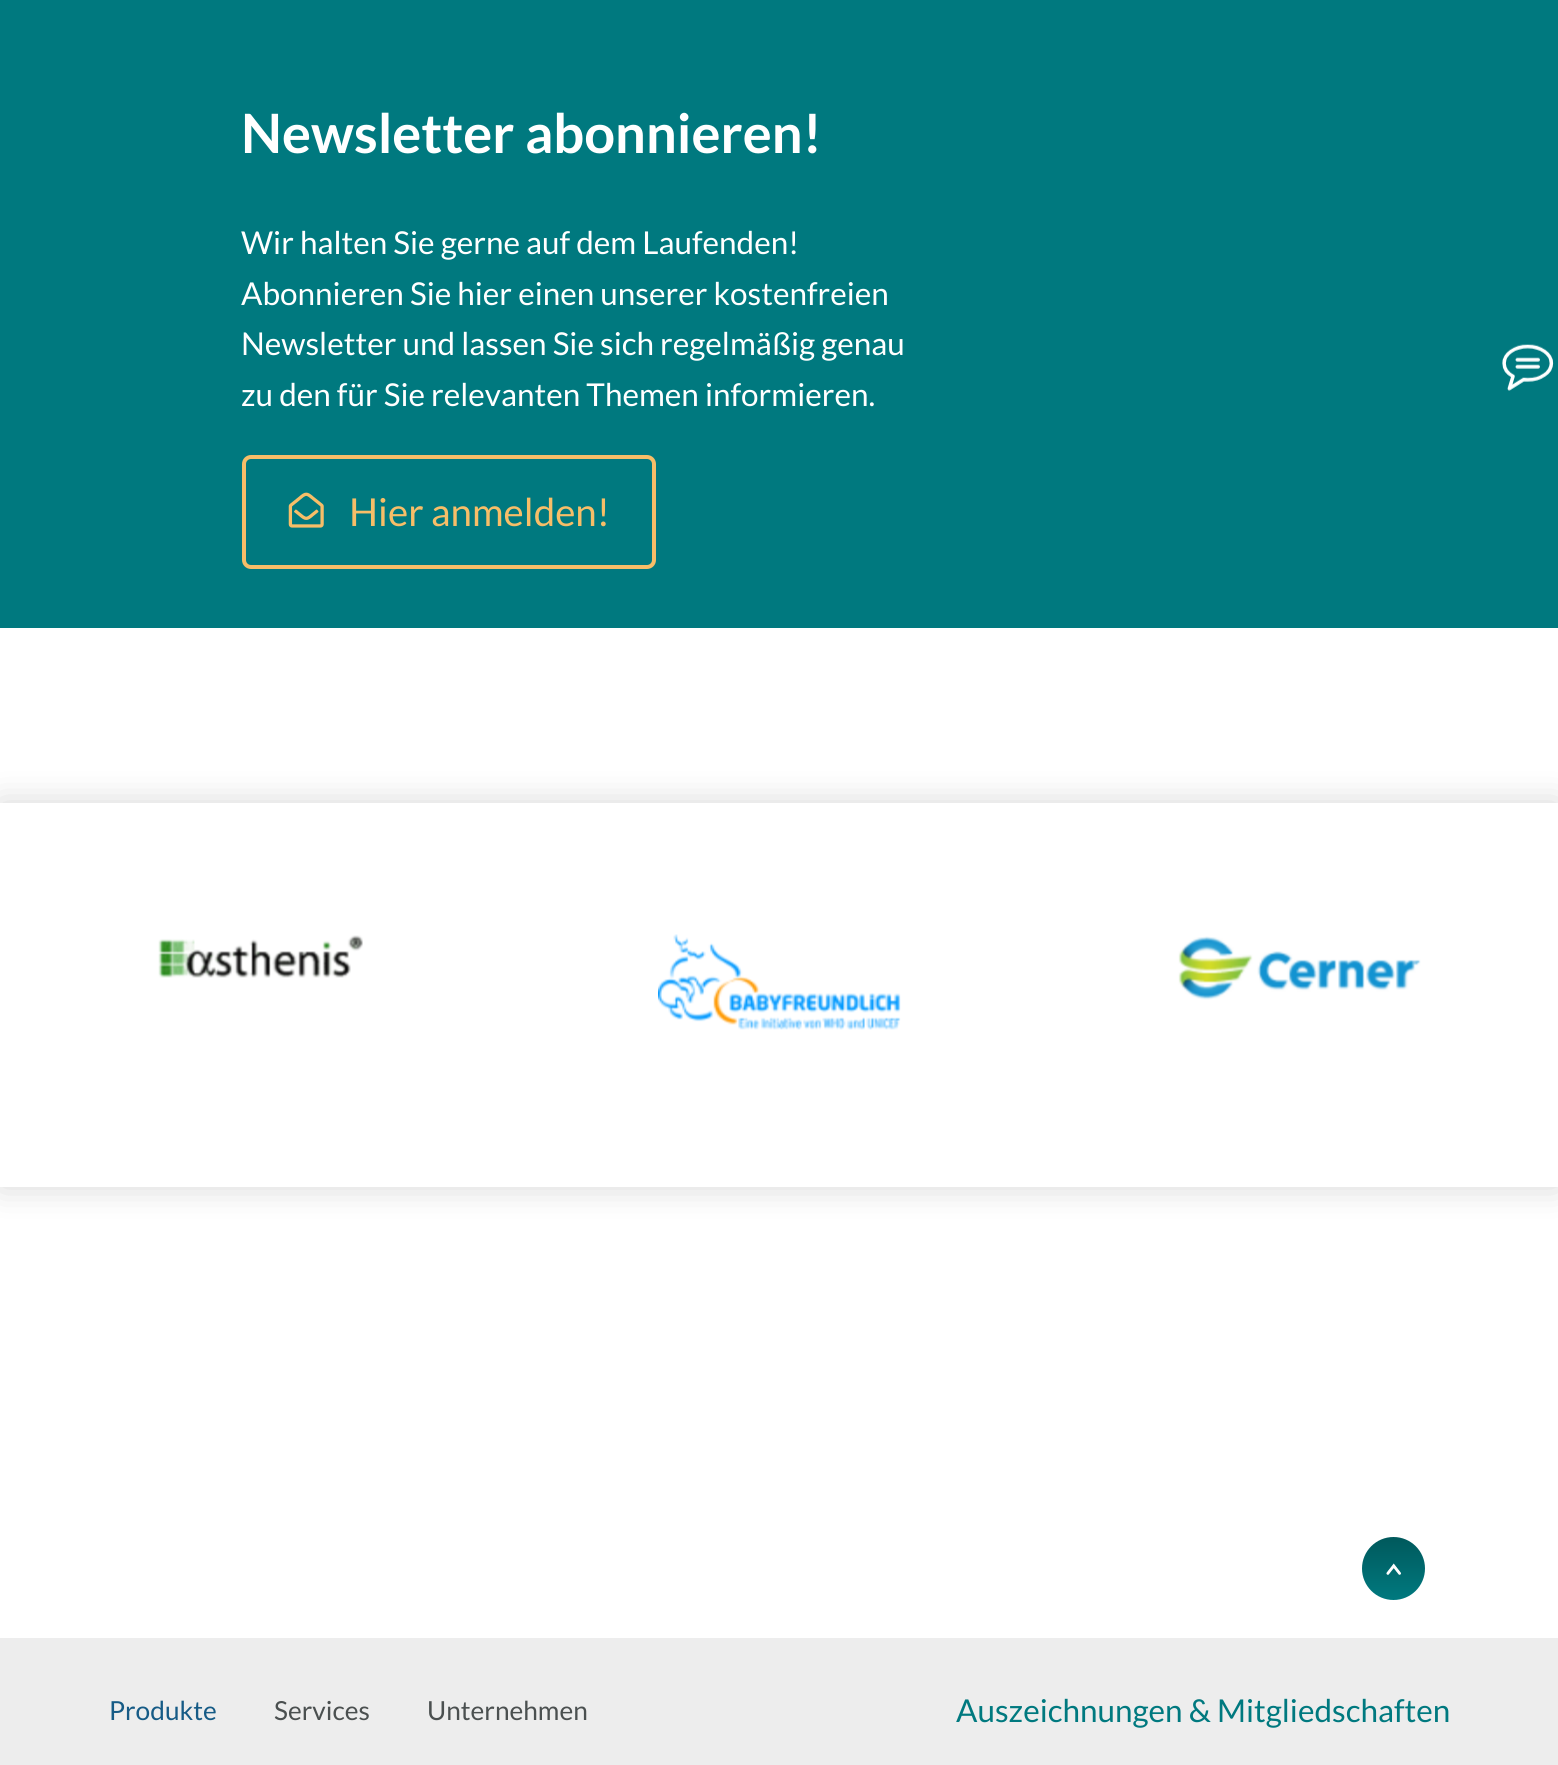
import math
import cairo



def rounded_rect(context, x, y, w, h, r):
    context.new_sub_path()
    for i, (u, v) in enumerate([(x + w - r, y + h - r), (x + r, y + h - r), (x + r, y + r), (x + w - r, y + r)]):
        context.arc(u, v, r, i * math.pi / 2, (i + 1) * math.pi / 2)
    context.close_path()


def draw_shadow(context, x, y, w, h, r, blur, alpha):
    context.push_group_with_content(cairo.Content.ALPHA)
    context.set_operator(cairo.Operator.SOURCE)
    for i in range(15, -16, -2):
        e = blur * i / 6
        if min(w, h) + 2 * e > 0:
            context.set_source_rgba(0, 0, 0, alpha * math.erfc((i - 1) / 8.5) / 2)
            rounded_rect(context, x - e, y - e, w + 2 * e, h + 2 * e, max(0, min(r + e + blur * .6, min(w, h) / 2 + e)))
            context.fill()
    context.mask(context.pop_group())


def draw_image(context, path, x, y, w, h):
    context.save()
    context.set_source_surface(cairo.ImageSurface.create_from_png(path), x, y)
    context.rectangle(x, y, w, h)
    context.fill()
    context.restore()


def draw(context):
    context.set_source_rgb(1, 1, 1)
    context.paint()
    context.set_source_rgb(0, 121 / 255, 127 / 255)
    context.rectangle(0, 0, 1558, 628)
    context.fill()
    rounded_rect(context, 244, 457, 410, 110, 7)
    context.set_source_rgb(247 / 255, 190 / 255, 104 / 255)
    context.set_line_width(4)
    context.stroke()
    draw_image(context, "images/1.png", 288, 492, 36, 36)
    draw_image(context, "images/2.png", 1502, 344, 52, 47)
    context.save()
    context.set_fill_rule(cairo.FillRule.EVEN_ODD)
    context.new_path()
    context.move_to(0, 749)
    context.line_to(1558, 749)
    context.line_to(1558, 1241)
    context.line_to(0, 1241)
    context.close_path()
    context.move_to(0, 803)
    context.line_to(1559, 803)
    context.line_to(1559, 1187)
    context.line_to(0, 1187)
    context.close_path()
    context.clip()
    context.set_source_rgb(0, 0, 0)
    draw_shadow(context, 0, 803, 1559, 384, 0, 17.5, 0.16)
    context.restore()
    draw_image(context, "images/3.png", 158, 935, 205, 43)
    draw_image(context, "images/4.png", 658, 934, 243, 96)
    draw_image(context, "images/5.png", 1178, 936, 243, 64)
    gradient = cairo.LinearGradient(1393, 1537, 1393, 1600)
    gradient.add_color_stop_rgba(0, 0, 89 / 255, 92 / 255, 1)
    gradient.add_color_stop_rgba(1, 0, 121 / 255, 127 / 255, 1)
    context.set_source(gradient)
    context.arc(1393.5, 1568.5, 31.5, 0, 2 * math.pi)
    context.fill()
    draw_image(context, "images/6.png", 1386, 1563, 15, 12)
    context.set_source_rgb(237 / 255, 237 / 255, 237 / 255)
    context.rectangle(0, 1638, 1558, 127)
    context.fill()
    context.select_font_face("Lato", cairo.FontSlant.NORMAL, cairo.FontWeight.BOLD)
    context.set_font_size(54.25)
    context.set_source_rgb(1, 1, 1)
    context.move_to(241, 153)
    context.show_text("Newsletter abonnieren!")
    context.select_font_face("Lato")
    context.set_font_size(31.5)
    context.move_to(241, 254)
    context.show_text("Wir halten Sie gerne auf dem Laufenden!")
    context.move_to(241, 305)
    context.show_text("Abonnieren Sie hier einen unserer kostenfreien")
    context.move_to(241, 355)
    context.show_text("Newsletter und lassen Sie sich regelmäßig genau")
    context.move_to(241, 406)
    context.show_text("zu den für Sie relevanten Themen informieren.")
    context.set_font_size(38.5)
    context.set_source_rgb(247 / 255, 190 / 255, 104 / 255)
    context.move_to(349, 526)
    context.show_text("Hier anmelden!")
    context.set_font_size(26.25)
    context.set_source_rgb(22 / 255, 91 / 255, 134 / 255)
    context.move_to(109, 1720)
    context.show_text("Produkte")
    context.set_source_rgb(75 / 255, 80 / 255, 80 / 255)
    context.move_to(274, 1720)
    context.show_text("Services")
    context.move_to(427, 1720)
    context.show_text("Unternehmen")
    context.set_font_size(31.5)
    context.set_source_rgb(0, 121 / 255, 127 / 255)
    context.move_to(956, 1722)
    context.show_text("Auszeichnungen & Mitgliedschaften")


surface = cairo.ImageSurface(cairo.Format.RGB24, 1558, 1765)
context = cairo.Context(surface)
options = cairo.FontOptions()
options.set_hint_metrics(cairo.HintMetrics.OFF)
options.set_hint_style(cairo.HintStyle.NONE)
context.set_font_options(options)
context.set_miter_limit(4)
draw(context)
surface.write_to_png("out.png")
